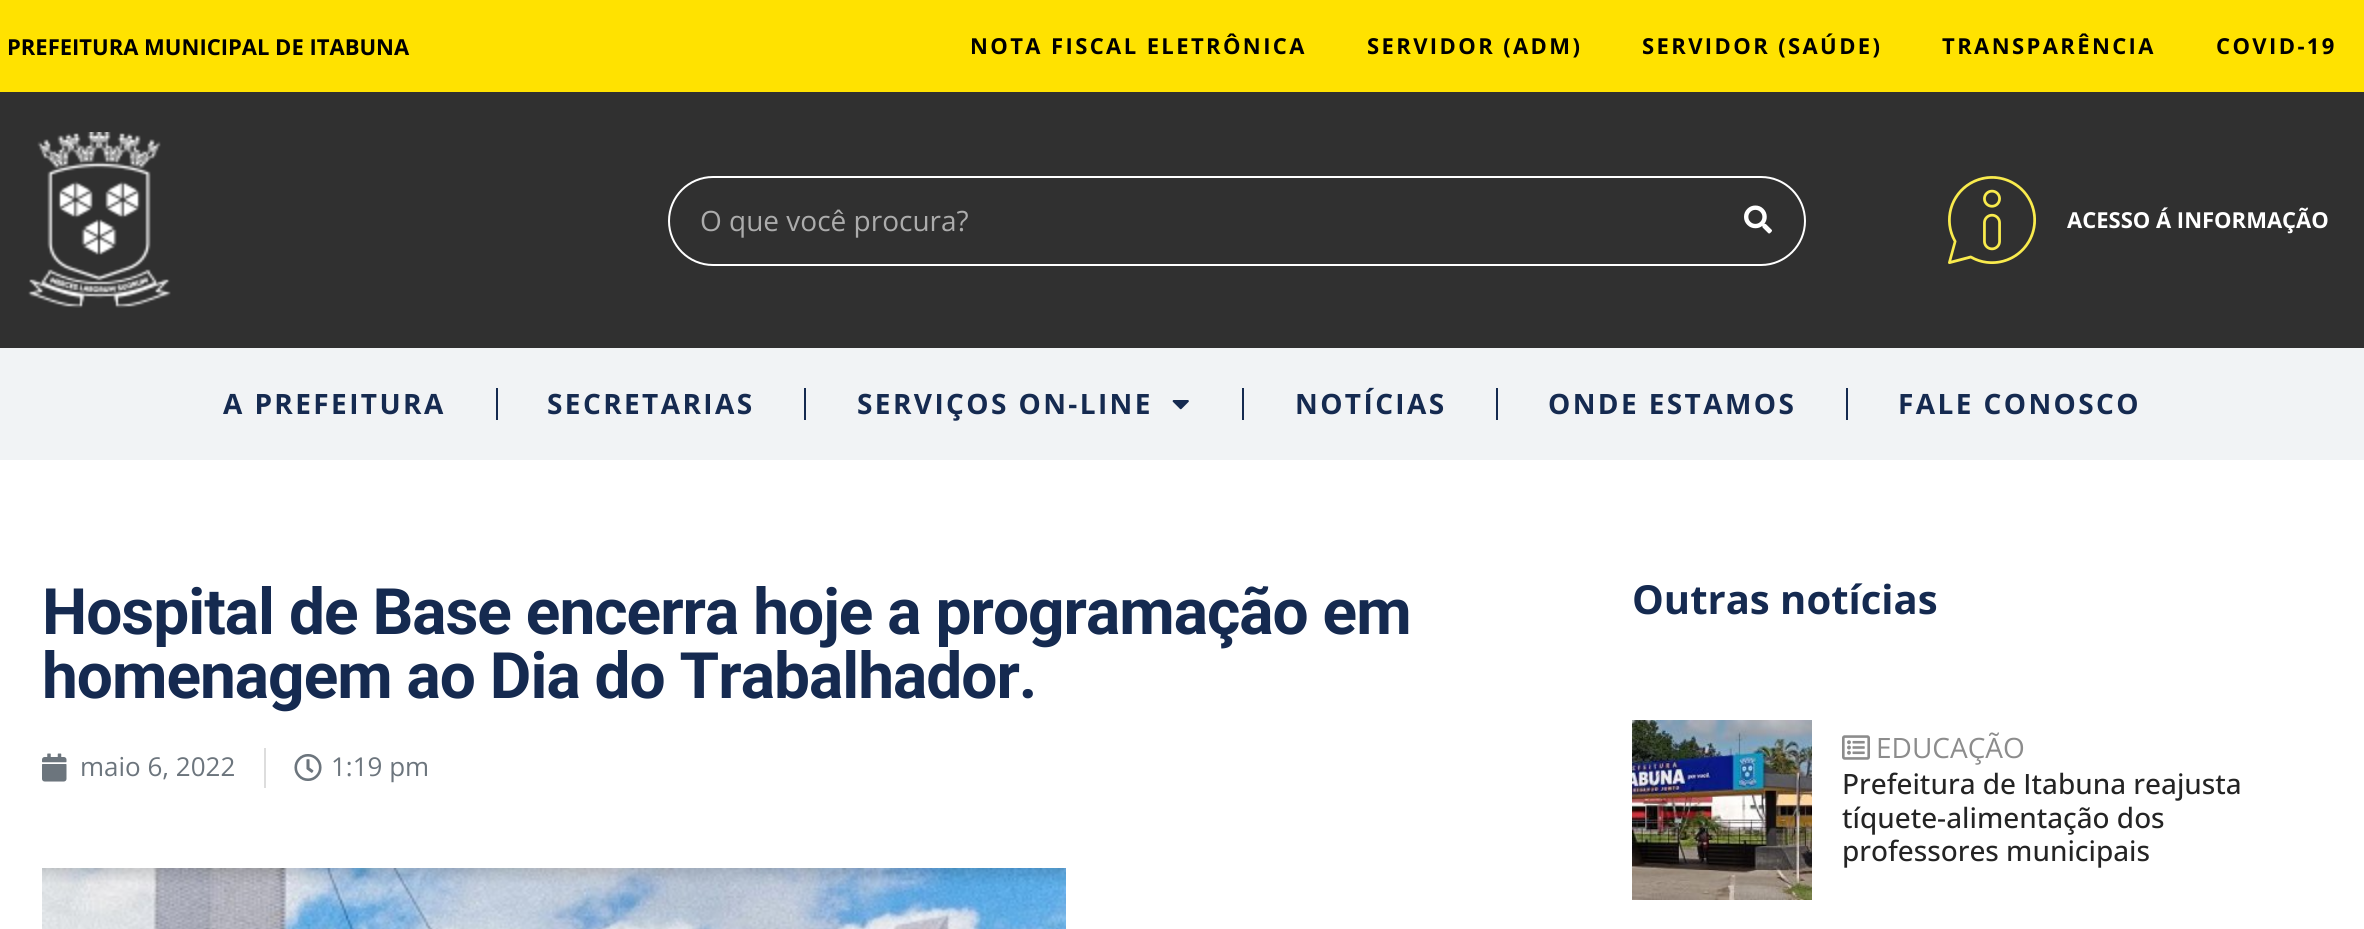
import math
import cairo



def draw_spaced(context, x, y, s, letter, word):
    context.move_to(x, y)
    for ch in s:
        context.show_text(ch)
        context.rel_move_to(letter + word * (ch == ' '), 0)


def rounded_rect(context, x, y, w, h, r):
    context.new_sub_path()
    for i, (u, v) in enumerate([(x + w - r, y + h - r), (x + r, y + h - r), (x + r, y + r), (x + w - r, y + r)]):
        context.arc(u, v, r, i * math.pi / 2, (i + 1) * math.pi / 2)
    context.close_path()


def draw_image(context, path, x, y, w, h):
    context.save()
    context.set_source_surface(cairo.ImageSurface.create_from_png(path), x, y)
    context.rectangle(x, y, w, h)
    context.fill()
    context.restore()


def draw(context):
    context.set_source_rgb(1, 1, 1)
    context.paint()
    context.set_source_rgb(1, 226 / 255, 0)
    context.rectangle(0, 0, 2364, 92)
    context.fill()
    context.set_source_rgb(48 / 255, 48 / 255, 48 / 255)
    context.rectangle(0, 92, 2364, 256)
    context.fill()
    draw_image(context, "images/1.png", 28, 132, 143, 176)
    rounded_rect(context, 669, 177, 1136, 88, 44)
    context.set_source_rgb(1, 1, 1)
    context.stroke()
    draw_image(context, "images/2.png", 1744, 205, 28, 29)
    draw_image(context, "images/3.png", 1948, 176, 88, 88)
    context.set_source_rgb(241 / 255, 243 / 255, 245 / 255)
    context.rectangle(0, 348, 2364, 112)
    context.fill()
    context.set_source_rgb(21 / 255, 42 / 255, 80 / 255)
    context.rectangle(496, 388, 2, 32)
    context.fill()
    context.rectangle(804, 388, 2, 32)
    context.fill()
    draw_image(context, "images/4.png", 1172, 400, 17, 10)
    context.rectangle(1242, 388, 2, 32)
    context.fill()
    context.rectangle(1496, 388, 2, 32)
    context.fill()
    context.rectangle(1846, 388, 2, 32)
    context.fill()
    draw_image(context, "images/5.png", 42, 753, 25, 29)
    context.set_source_rgb(221 / 255, 221 / 255, 221 / 255)
    context.rectangle(264, 748, 2, 40)
    context.fill()
    draw_image(context, "images/6.png", 294, 754, 28, 27)
    draw_image(context, "images/7.png", 42, 868, 1024, 61)
    draw_image(context, "images/8.png", 1632, 720, 180, 180)
    draw_image(context, "images/9.png", 1842, 735, 28, 25)
    context.select_font_face("Open Sans", cairo.FontSlant.NORMAL, cairo.FontWeight.BOLD)
    context.set_font_size(22)
    context.set_source_rgb(0, 0, 0)
    context.move_to(7, 55)
    context.show_text("PREFEITURA MUNICIPAL DE ITABUNA")
    draw_spaced(context, 970, 54, "NOTA FISCAL ELETRÔNICA", 2.4, 0)
    draw_spaced(context, 1367, 54, "SERVIDOR (ADM)", 2.4, 0)
    draw_spaced(context, 1642, 54, "SERVIDOR (SAÚDE)", 2.4, 0)
    draw_spaced(context, 1942, 54, "TRANSPARÊNCIA", 2.4, 0)
    draw_spaced(context, 2216, 54, "COVID-19", 2.4, 0)
    context.select_font_face("Open Sans")
    context.set_font_size(28)
    context.set_source_rgb(172 / 255, 172 / 255, 172 / 255)
    context.move_to(700, 231)
    context.show_text("O que você procura?")
    context.select_font_face("Open Sans", cairo.FontSlant.NORMAL, cairo.FontWeight.BOLD)
    context.set_font_size(22)
    context.set_source_rgb(1, 1, 1)
    context.move_to(2067, 228)
    context.show_text("ACESSO Á INFORMAÇÃO")
    context.set_font_size(28)
    context.set_source_rgb(21 / 255, 42 / 255, 80 / 255)
    draw_spaced(context, 223, 414, "A PREFEITURA", 2.4, 0)
    draw_spaced(context, 547, 414, "SECRETARIAS", 2.4, 0)
    draw_spaced(context, 857, 414, "SERVIÇOS ON-LINE", 2.4, 0)
    draw_spaced(context, 1295, 414, "NOTÍCIAS", 2.4, 0)
    draw_spaced(context, 1548, 414, "ONDE ESTAMOS", 2.4, 0)
    draw_spaced(context, 1898, 414, "FALE CONOSCO", 2.4, 0)
    context.select_font_face("Roboto", cairo.FontSlant.NORMAL, cairo.FontWeight.BOLD)
    context.set_font_size(64)
    draw_spaced(context, 42, 634, "Hospital de Base encerra hoje a programação em", -1, 0)
    draw_spaced(context, 42, 698, "homenagem ao Dia do Trabalhador.", -1, 0)
    context.select_font_face("Open Sans")
    context.set_font_size(26)
    context.set_source_rgb(108 / 255, 117 / 255, 125 / 255)
    context.move_to(80, 776)
    context.show_text("maio 6, 2022")
    context.move_to(331, 776)
    context.show_text("1:19 pm")
    context.select_font_face("Open Sans", cairo.FontSlant.NORMAL, cairo.FontWeight.BOLD)
    context.set_font_size(40)
    context.set_source_rgb(21 / 255, 42 / 255, 80 / 255)
    context.move_to(1632, 614)
    context.show_text("Outras notícias")
    context.select_font_face("Open Sans")
    context.set_font_size(28)
    context.set_source_rgb(140 / 255, 140 / 255, 140 / 255)
    context.move_to(1876, 758)
    context.show_text("EDUCAÇÃO")
    context.select_font_face("Open Sans Medium")
    context.set_source_rgb(36 / 255, 36 / 255, 36 / 255)
    context.move_to(1842, 794)
    context.show_text("Prefeitura de Itabuna reajusta")
    context.move_to(1842, 828)
    context.show_text("tíquete-alimentação dos")
    context.move_to(1842, 861)
    context.show_text("professores municipais")


surface = cairo.ImageSurface(cairo.Format.RGB24, 2364, 929)
context = cairo.Context(surface)
options = cairo.FontOptions()
options.set_hint_metrics(cairo.HintMetrics.OFF)
options.set_hint_style(cairo.HintStyle.NONE)
context.set_font_options(options)
context.set_miter_limit(4)
draw(context)
surface.write_to_png("out.png")
